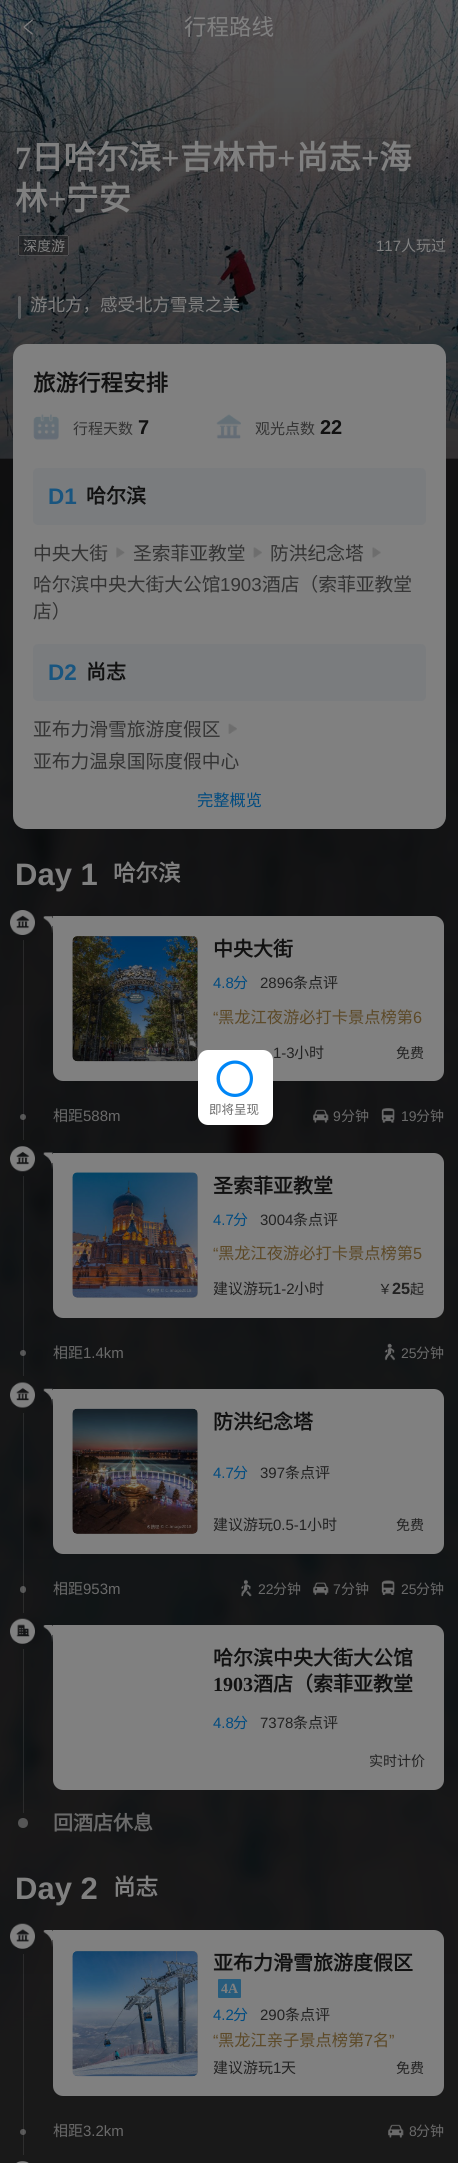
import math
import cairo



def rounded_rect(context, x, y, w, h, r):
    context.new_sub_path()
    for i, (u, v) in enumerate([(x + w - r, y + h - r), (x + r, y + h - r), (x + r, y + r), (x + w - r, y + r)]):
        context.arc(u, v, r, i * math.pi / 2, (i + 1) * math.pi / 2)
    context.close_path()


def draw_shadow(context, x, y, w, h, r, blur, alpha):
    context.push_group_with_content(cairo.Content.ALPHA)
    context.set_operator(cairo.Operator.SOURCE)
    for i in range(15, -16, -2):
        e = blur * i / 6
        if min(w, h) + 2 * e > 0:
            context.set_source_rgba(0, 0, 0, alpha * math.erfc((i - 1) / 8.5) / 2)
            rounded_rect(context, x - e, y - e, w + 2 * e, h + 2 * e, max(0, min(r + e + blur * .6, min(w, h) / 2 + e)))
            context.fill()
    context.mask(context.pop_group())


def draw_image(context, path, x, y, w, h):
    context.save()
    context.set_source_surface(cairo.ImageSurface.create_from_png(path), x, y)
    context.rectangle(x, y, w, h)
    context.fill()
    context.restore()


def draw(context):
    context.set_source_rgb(120 / 255, 120 / 255, 120 / 255)
    context.paint()
    draw_image(context, "images/1.png", 0, 458, 458, 1577)
    context.set_source_rgb(0, 0, 0)
    draw_shadow(context, -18, -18, 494, 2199, 0, 6, 0.6)
    gradient = cairo.LinearGradient(229, 0, 229, 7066)
    gradient.add_color_stop_rgba(0, 0, 0, 0, 0.6)
    gradient.add_color_stop_rgba(1, 0, 0, 0, 0.2)
    context.set_source(gradient)
    context.rectangle(0, 458, 458, 1705)
    context.fill()
    draw_image(context, "images/2.png", 0, 0, 458, 459)
    gradient = cairo.LinearGradient(229, 0, 229, 459)
    gradient.add_color_stop_rgba(0, 0, 0, 0, 0.3)
    gradient.add_color_stop_rgba(0.98, 0, 0, 0, 0.6)
    context.set_source(gradient)
    context.rectangle(0, 0, 458, 459)
    context.fill()
    draw_image(context, "images/3.png", 23, 19, 10, 16)
    context.set_source_rgba(0, 0, 0, 0.3)
    context.rectangle(18, 235, 51, 21)
    context.fill()
    rounded_rect(context, 18.3, 235.3, 50.4, 20.4, 2.2)
    context.set_source_rgba(128 / 255, 128 / 255, 128 / 255, 0.7)
    context.set_line_width(0.6)
    context.stroke()
    context.set_source_rgba(128 / 255, 128 / 255, 128 / 255, 0.6)
    rounded_rect(context, 18, 296, 3, 23, 1.5)
    context.fill()
    context.set_source_rgb(128 / 255, 128 / 255, 128 / 255)
    rounded_rect(context, 13, 344, 433, 485, 13)
    context.fill()
    draw_image(context, "images/4.png", 33, 414, 26, 26)
    draw_image(context, "images/5.png", 216, 414, 25, 25)
    context.set_source_rgb(122 / 255, 124 / 255, 126 / 255)
    rounded_rect(context, 33, 468, 393, 57, 5)
    context.fill()
    draw_image(context, "images/6.png", 116, 547, 9, 11)
    draw_image(context, "images/7.png", 253, 547, 9, 11)
    draw_image(context, "images/8.png", 372, 547, 9, 11)
    rounded_rect(context, 33, 644, 393, 57, 5)
    context.fill()
    draw_image(context, "images/9.png", 228, 723, 9, 11)
    context.set_source_rgb(128 / 255, 128 / 255, 128 / 255)
    context.new_path()
    context.move_to(53, 916)
    context.line_to(434, 916)
    context.curve_to(439.5, 916, 444, 920.5, 444, 926)
    context.line_to(444, 1071)
    context.curve_to(444, 1076.5, 439.5, 1081, 434, 1081)
    context.line_to(63, 1081)
    context.curve_to(57.5, 1081, 53, 1076.5, 53, 1071)
    context.close_path()
    context.fill()
    draw_image(context, "images/10.png", 10, 910, 25, 25)
    rounded_rect(context, 51, 918, 3, 8, 1.5)
    context.fill()
    draw_image(context, "images/11.png", 43, 916, 10, 17)
    context.set_source_rgba(128 / 255, 128 / 255, 128 / 255, 0.2)
    context.rectangle(23, 940, 1, 141)
    context.fill()
    context.set_source_rgb(108 / 255, 108 / 255, 108 / 255)
    rounded_rect(context, 73, 936, 125, 125, 5)
    context.fill()
    draw_image(context, "images/12.png", 72, 936, 126, 126)
    draw_image(context, "images/13.png", 72, 936, 126, 126)
    context.set_source_rgba(128 / 255, 128 / 255, 128 / 255, 0.2)
    context.rectangle(23, 1081, 1, 59)
    context.fill()
    draw_image(context, "images/14.png", 313, 1109, 16, 14)
    draw_image(context, "images/15.png", 381, 1108, 14, 15)
    context.set_source_rgba(128 / 255, 128 / 255, 128 / 255, 0.6)
    context.arc(23, 1117, 3, 0, 2 * math.pi)
    context.fill()
    context.set_source_rgb(128 / 255, 128 / 255, 128 / 255)
    context.new_path()
    context.move_to(53, 1153)
    context.line_to(434, 1153)
    context.curve_to(439.5, 1153, 444, 1157.5, 444, 1163)
    context.line_to(444, 1308)
    context.curve_to(444, 1313.5, 439.5, 1318, 434, 1318)
    context.line_to(63, 1318)
    context.curve_to(57.5, 1318, 53, 1313.5, 53, 1308)
    context.close_path()
    context.fill()
    draw_image(context, "images/16.png", 10, 1146, 25, 26)
    rounded_rect(context, 51, 1154, 3, 9, 1.5)
    context.fill()
    draw_image(context, "images/17.png", 43, 1152, 10, 18)
    context.set_source_rgba(128 / 255, 128 / 255, 128 / 255, 0.2)
    context.rectangle(23, 1176, 1, 142)
    context.fill()
    context.set_source_rgb(108 / 255, 108 / 255, 108 / 255)
    rounded_rect(context, 73, 1173, 125, 125, 5)
    context.fill()
    draw_image(context, "images/18.png", 72, 1172, 126, 126)
    draw_image(context, "images/19.png", 72, 1172, 126, 126)
    context.set_source_rgba(128 / 255, 128 / 255, 128 / 255, 0.2)
    context.rectangle(23, 1318, 1, 58)
    context.fill()
    draw_image(context, "images/20.png", 384, 1343, 11, 18)
    context.set_source_rgba(128 / 255, 128 / 255, 128 / 255, 0.6)
    context.arc(23, 1353, 3, 0, 2 * math.pi)
    context.fill()
    context.set_source_rgb(128 / 255, 128 / 255, 128 / 255)
    context.new_path()
    context.move_to(53, 1389)
    context.line_to(434, 1389)
    context.curve_to(439.5, 1389, 444, 1393.5, 444, 1399)
    context.line_to(444, 1544)
    context.curve_to(444, 1549.5, 439.5, 1554, 434, 1554)
    context.line_to(63, 1554)
    context.curve_to(57.5, 1554, 53, 1549.5, 53, 1544)
    context.close_path()
    context.fill()
    draw_image(context, "images/21.png", 10, 1382, 25, 26)
    rounded_rect(context, 51, 1390, 3, 9, 1.5)
    context.fill()
    draw_image(context, "images/22.png", 43, 1388, 10, 18)
    context.set_source_rgba(128 / 255, 128 / 255, 128 / 255, 0.2)
    context.rectangle(23, 1413, 1, 141)
    context.fill()
    context.set_source_rgb(108 / 255, 108 / 255, 108 / 255)
    rounded_rect(context, 73, 1409, 125, 125, 5)
    context.fill()
    draw_image(context, "images/23.png", 72, 1408, 126, 126)
    draw_image(context, "images/24.png", 72, 1408, 126, 126)
    context.set_source_rgba(128 / 255, 128 / 255, 128 / 255, 0.2)
    context.rectangle(23, 1554, 1, 59)
    context.fill()
    draw_image(context, "images/25.png", 241, 1579, 11, 18)
    draw_image(context, "images/26.png", 313, 1582, 16, 13)
    draw_image(context, "images/27.png", 381, 1580, 14, 15)
    context.set_source_rgba(128 / 255, 128 / 255, 128 / 255, 0.6)
    rounded_rect(context, 20, 1586, 6, 7, 3)
    context.fill()
    context.set_source_rgb(128 / 255, 128 / 255, 128 / 255)
    context.new_path()
    context.move_to(53, 1625)
    context.line_to(434, 1625)
    context.curve_to(439.5, 1625, 444, 1629.5, 444, 1635)
    context.line_to(444, 1780)
    context.curve_to(444, 1785.5, 439.5, 1790, 434, 1790)
    context.line_to(63, 1790)
    context.curve_to(57.5, 1790, 53, 1785.5, 53, 1780)
    context.close_path()
    context.fill()
    draw_image(context, "images/28.png", 10, 1618, 25, 26)
    rounded_rect(context, 51, 1626, 3, 9, 1.5)
    context.fill()
    draw_image(context, "images/29.png", 43, 1625, 10, 17)
    context.set_source_rgba(128 / 255, 128 / 255, 128 / 255, 0.2)
    context.rectangle(23, 1649, 1, 141)
    context.fill()
    context.rectangle(23, 1790, 1, 23)
    context.fill()
    context.set_source_rgb(86 / 255, 86 / 255, 86 / 255)
    context.arc(23, 1823, 5, 0, 2 * math.pi)
    context.fill()
    context.set_source_rgb(128 / 255, 128 / 255, 128 / 255)
    context.new_path()
    context.move_to(53, 1930)
    context.line_to(434, 1930)
    context.curve_to(439.5, 1930, 444, 1934.5, 444, 1940)
    context.line_to(444, 2086)
    context.curve_to(444, 2091.5, 439.5, 2096, 434, 2096)
    context.line_to(63, 2096)
    context.curve_to(57.5, 2096, 53, 2091.5, 53, 2086)
    context.close_path()
    context.fill()
    draw_image(context, "images/30.png", 10, 1923, 25, 26)
    rounded_rect(context, 51, 1931, 3, 9, 1.5)
    context.fill()
    draw_image(context, "images/31.png", 43, 1930, 10, 17)
    context.set_source_rgba(128 / 255, 128 / 255, 128 / 255, 0.2)
    context.rectangle(23, 1954, 1, 142)
    context.fill()
    context.set_source_rgb(108 / 255, 108 / 255, 108 / 255)
    rounded_rect(context, 73, 1951, 125, 125, 5)
    context.fill()
    draw_image(context, "images/32.png", 72, 1951, 126, 126)
    draw_image(context, "images/33.png", 72, 1951, 126, 126)
    context.set_source_rgb(40 / 255, 92 / 255, 124 / 255)
    rounded_rect(context, 218, 1979, 23, 19, 1)
    context.fill()
    context.set_source_rgb(46 / 255, 46 / 255, 46 / 255)
    context.rectangle(23, 2096, 1, 59)
    context.fill()
    draw_image(context, "images/34.png", 388, 2124, 16, 14)
    context.set_source_rgba(128 / 255, 128 / 255, 128 / 255, 0.6)
    context.arc(23, 2132, 3, 0, 2 * math.pi)
    context.fill()
    draw_image(context, "images/35.png", 16, 2161, 13, 2)
    context.set_source_rgb(1, 1, 1)
    rounded_rect(context, 198, 1050, 75, 75, 10)
    context.fill()
    context.save()
    context.new_path()
    context.move_to(235, 1060.5)
    context.curve_to(245, 1060.5, 253, 1068.5, 253, 1078.5)
    context.curve_to(253, 1089, 245, 1097, 235, 1097)
    context.curve_to(225, 1097, 216.5, 1089, 216.5, 1078.5)
    context.curve_to(216.5, 1068.5, 225, 1060.5, 235, 1060.5)
    context.close_path()
    context.clip()
    context.new_path()
    context.move_to(235, 1095.5)
    context.curve_to(238.5, 1095.5, 241.5, 1094.5, 244.5, 1092.5)
    context.curve_to(257.5, 1083, 251.5, 1062, 235, 1062)
    context.curve_to(231.5, 1062, 228.5, 1063, 225.5, 1065)
    context.curve_to(212, 1074, 218.5, 1095.5, 235, 1095.5)
    context.close_path()
    context.set_source_rgb(0, 134 / 255, 246 / 255)
    context.set_line_width(3.4)
    context.set_line_cap(cairo.LineCap.ROUND)
    context.stroke()
    context.restore()
    context.select_font_face("Noto Sans CJK SC")
    context.set_font_size(22.5)
    context.set_source_rgb(128 / 255, 128 / 255, 128 / 255)
    context.move_to(184, 35)
    context.show_text("行程路线")
    context.select_font_face("Liberation Serif", cairo.FontSlant.NORMAL, cairo.FontWeight.BOLD)
    context.set_font_size(32.5)
    context.move_to(15, 169)
    context.show_text("7")
    context.select_font_face("Noto Sans CJK SC", cairo.FontSlant.NORMAL, cairo.FontWeight.BOLD)
    context.move_to(31, 169)
    context.show_text("日哈尔滨")
    context.select_font_face("Liberation Serif", cairo.FontSlant.NORMAL, cairo.FontWeight.BOLD)
    context.move_to(161, 169)
    context.show_text("+")
    context.select_font_face("Noto Sans CJK SC", cairo.FontSlant.NORMAL, cairo.FontWeight.BOLD)
    context.move_to(180, 169)
    context.show_text("吉林市")
    context.select_font_face("Liberation Serif", cairo.FontSlant.NORMAL, cairo.FontWeight.BOLD)
    context.move_to(277, 169)
    context.show_text("+")
    context.select_font_face("Noto Sans CJK SC", cairo.FontSlant.NORMAL, cairo.FontWeight.BOLD)
    context.move_to(296, 169)
    context.show_text("尚志")
    context.select_font_face("Liberation Serif", cairo.FontSlant.NORMAL, cairo.FontWeight.BOLD)
    context.move_to(361, 169)
    context.show_text("+")
    context.select_font_face("Noto Sans CJK SC", cairo.FontSlant.NORMAL, cairo.FontWeight.BOLD)
    context.move_to(379, 169)
    context.show_text("海")
    context.move_to(15, 210)
    context.show_text("林")
    context.select_font_face("Liberation Serif", cairo.FontSlant.NORMAL, cairo.FontWeight.BOLD)
    context.move_to(48, 210)
    context.show_text("+")
    context.select_font_face("Noto Sans CJK SC", cairo.FontSlant.NORMAL, cairo.FontWeight.BOLD)
    context.move_to(66, 210)
    context.show_text("宁安")
    context.select_font_face("Noto Sans CJK SC")
    context.set_font_size(14)
    context.move_to(23, 251)
    context.show_text("深度游")
    context.select_font_face("Liberation Sans")
    context.set_font_size(15)
    context.move_to(376, 251)
    context.show_text("117")
    context.select_font_face("Noto Sans CJK SC")
    context.move_to(401, 251)
    context.show_text("人玩过")
    context.set_font_size(17.5)
    context.move_to(30, 311)
    context.show_text("游北方，感受北方雪景之美")
    context.select_font_face("Noto Sans CJK SC", cairo.FontSlant.NORMAL, cairo.FontWeight.BOLD)
    context.set_font_size(22.5)
    context.set_source_rgb(17 / 255, 17 / 255, 17 / 255)
    context.move_to(33, 391)
    context.show_text("旅游行程安排")
    context.select_font_face("Noto Sans CJK SC")
    context.set_font_size(15)
    context.set_source_rgb(51 / 255, 51 / 255, 51 / 255)
    context.move_to(73, 434)
    context.show_text("行程天数")
    context.select_font_face("Liberation Sans", cairo.FontSlant.NORMAL, cairo.FontWeight.BOLD)
    context.set_font_size(20)
    context.set_source_rgb(17 / 255, 17 / 255, 17 / 255)
    context.move_to(138, 434)
    context.show_text("7")
    context.select_font_face("Noto Sans CJK SC")
    context.set_font_size(15)
    context.set_source_rgb(51 / 255, 51 / 255, 51 / 255)
    context.move_to(255, 434)
    context.show_text("观光点数")
    context.select_font_face("Liberation Sans", cairo.FontSlant.NORMAL, cairo.FontWeight.BOLD)
    context.set_font_size(20)
    context.set_source_rgb(17 / 255, 17 / 255, 17 / 255)
    context.move_to(320, 434)
    context.show_text("22")
    context.set_font_size(22.5)
    context.set_source_rgb(25 / 255, 85 / 255, 127 / 255)
    context.move_to(48, 504)
    context.show_text("D1")
    context.select_font_face("Noto Sans CJK SC", cairo.FontSlant.NORMAL, cairo.FontWeight.BOLD)
    context.set_font_size(20)
    context.set_source_rgb(17 / 255, 17 / 255, 17 / 255)
    context.move_to(86, 503)
    context.show_text("哈尔滨")
    context.select_font_face("Noto Sans CJK SC")
    context.set_font_size(18.75)
    context.set_source_rgb(51 / 255, 51 / 255, 51 / 255)
    context.move_to(33, 560)
    context.show_text("中央大街")
    context.move_to(133, 560)
    context.show_text("圣索菲亚教堂")
    context.move_to(270, 560)
    context.show_text("防洪纪念塔")
    context.move_to(33, 591)
    context.show_text("哈尔滨中央大街大公馆")
    context.select_font_face("Liberation Sans")
    context.move_to(220, 591)
    context.show_text("1903")
    context.select_font_face("Noto Sans CJK SC")
    context.move_to(262, 591)
    context.show_text("酒店（索菲亚教堂")
    context.move_to(33, 618)
    context.show_text("店）")
    context.select_font_face("Liberation Sans", cairo.FontSlant.NORMAL, cairo.FontWeight.BOLD)
    context.set_font_size(22.5)
    context.set_source_rgb(25 / 255, 85 / 255, 127 / 255)
    context.move_to(48, 680)
    context.show_text("D2")
    context.select_font_face("Noto Sans CJK SC", cairo.FontSlant.NORMAL, cairo.FontWeight.BOLD)
    context.set_font_size(20)
    context.set_source_rgb(17 / 255, 17 / 255, 17 / 255)
    context.move_to(86, 679)
    context.show_text("尚志")
    context.select_font_face("Noto Sans CJK SC")
    context.set_font_size(18.75)
    context.set_source_rgb(51 / 255, 51 / 255, 51 / 255)
    context.move_to(33, 736)
    context.show_text("亚布力滑雪旅游度假区")
    context.move_to(33, 768)
    context.show_text("亚布力温泉国际度假中心")
    context.set_font_size(16.25)
    context.set_source_rgb(1 / 255, 75 / 255, 128 / 255)
    context.move_to(197, 806)
    context.show_text("完整概览")
    context.select_font_face("Liberation Sans", cairo.FontSlant.NORMAL, cairo.FontWeight.BOLD)
    context.set_font_size(31)
    context.set_source_rgb(128 / 255, 128 / 255, 128 / 255)
    context.move_to(15, 885)
    context.show_text("Day 1")
    context.select_font_face("Noto Sans CJK SC", cairo.FontSlant.NORMAL, cairo.FontWeight.BOLD)
    context.set_font_size(22.5)
    context.move_to(113, 881)
    context.show_text("哈尔滨")
    context.set_font_size(20)
    context.set_source_rgb(17 / 255, 17 / 255, 17 / 255)
    context.move_to(213, 956)
    context.show_text("中央大街")
    context.select_font_face("Liberation Sans")
    context.set_font_size(15)
    context.set_source_rgb(1 / 255, 75 / 255, 128 / 255)
    context.move_to(213, 988)
    context.show_text("4.8")
    context.select_font_face("Noto Sans CJK SC")
    context.move_to(233, 988)
    context.show_text("分")
    context.select_font_face("Liberation Sans")
    context.set_source_rgb(34 / 255, 34 / 255, 34 / 255)
    context.move_to(260, 988)
    context.show_text("2896")
    context.select_font_face("Noto Sans CJK SC")
    context.move_to(293, 988)
    context.show_text("条点评")
    context.select_font_face("Liberation Sans")
    context.set_font_size(16.25)
    context.set_source_rgb(92 / 255, 73 / 255, 39 / 255)
    context.move_to(213, 1023)
    context.show_text("“")
    context.select_font_face("Noto Sans CJK SC")
    context.move_to(218, 1023)
    context.show_text("黑龙江夜游必打卡景点榜第")
    context.select_font_face("Liberation Sans")
    context.move_to(413, 1023)
    context.show_text("6")
    context.set_font_size(15)
    context.set_source_rgb(34 / 255, 34 / 255, 34 / 255)
    context.move_to(273, 1058)
    context.show_text("1-3")
    context.select_font_face("Noto Sans CJK SC")
    context.move_to(294, 1058)
    context.show_text("小时")
    context.set_font_size(14)
    context.move_to(396, 1058)
    context.show_text("免费")
    context.set_font_size(15)
    context.set_source_rgb(106 / 255, 106 / 255, 106 / 255)
    context.move_to(53, 1121)
    context.show_text("相距")
    context.select_font_face("Liberation Sans")
    context.move_to(83, 1121)
    context.show_text("588m")
    context.set_font_size(14)
    context.move_to(333, 1121)
    context.show_text("9")
    context.select_font_face("Noto Sans CJK SC")
    context.move_to(341, 1121)
    context.show_text("分钟")
    context.select_font_face("Liberation Sans")
    context.move_to(401, 1121)
    context.show_text("19")
    context.select_font_face("Noto Sans CJK SC")
    context.move_to(416, 1121)
    context.show_text("分钟")
    context.select_font_face("Noto Sans CJK SC", cairo.FontSlant.NORMAL, cairo.FontWeight.BOLD)
    context.set_font_size(20)
    context.set_source_rgb(17 / 255, 17 / 255, 17 / 255)
    context.move_to(213, 1193)
    context.show_text("圣索菲亚教堂")
    context.select_font_face("Liberation Sans")
    context.set_font_size(15)
    context.set_source_rgb(1 / 255, 75 / 255, 128 / 255)
    context.move_to(213, 1225)
    context.show_text("4.7")
    context.select_font_face("Noto Sans CJK SC")
    context.move_to(233, 1225)
    context.show_text("分")
    context.select_font_face("Liberation Sans")
    context.set_source_rgb(34 / 255, 34 / 255, 34 / 255)
    context.move_to(260, 1225)
    context.show_text("3004")
    context.select_font_face("Noto Sans CJK SC")
    context.move_to(293, 1225)
    context.show_text("条点评")
    context.select_font_face("Liberation Sans")
    context.set_font_size(16.25)
    context.set_source_rgb(92 / 255, 73 / 255, 39 / 255)
    context.move_to(213, 1259)
    context.show_text("“")
    context.select_font_face("Noto Sans CJK SC")
    context.move_to(218, 1259)
    context.show_text("黑龙江夜游必打卡景点榜第")
    context.select_font_face("Liberation Sans")
    context.move_to(413, 1259)
    context.show_text("5")
    context.select_font_face("Noto Sans CJK SC")
    context.set_font_size(15)
    context.set_source_rgb(34 / 255, 34 / 255, 34 / 255)
    context.move_to(213, 1294)
    context.show_text("建议游玩")
    context.select_font_face("Liberation Sans")
    context.move_to(273, 1294)
    context.show_text("1-2")
    context.select_font_face("Noto Sans CJK SC")
    context.move_to(294, 1294)
    context.show_text("小时")
    context.set_font_size(14)
    context.move_to(378, 1294)
    context.show_text("￥")
    context.select_font_face("Liberation Sans", cairo.FontSlant.NORMAL, cairo.FontWeight.BOLD)
    context.set_font_size(16.25)
    context.move_to(392, 1294)
    context.show_text("25")
    context.select_font_face("Noto Sans CJK SC")
    context.set_font_size(14)
    context.move_to(410, 1294)
    context.show_text("起")
    context.set_font_size(15)
    context.set_source_rgb(106 / 255, 106 / 255, 106 / 255)
    context.move_to(53, 1358)
    context.show_text("相距")
    context.select_font_face("Liberation Sans")
    context.move_to(83, 1358)
    context.show_text("1.4km")
    context.set_font_size(14)
    context.move_to(401, 1358)
    context.show_text("25")
    context.select_font_face("Noto Sans CJK SC")
    context.move_to(416, 1358)
    context.show_text("分钟")
    context.select_font_face("Noto Sans CJK SC", cairo.FontSlant.NORMAL, cairo.FontWeight.BOLD)
    context.set_font_size(20)
    context.set_source_rgb(17 / 255, 17 / 255, 17 / 255)
    context.move_to(213, 1429)
    context.show_text("防洪纪念塔")
    context.select_font_face("Liberation Sans")
    context.set_font_size(15)
    context.set_source_rgb(1 / 255, 75 / 255, 128 / 255)
    context.move_to(213, 1478)
    context.show_text("4.7")
    context.select_font_face("Noto Sans CJK SC")
    context.move_to(233, 1478)
    context.show_text("分")
    context.select_font_face("Liberation Sans")
    context.set_source_rgb(34 / 255, 34 / 255, 34 / 255)
    context.move_to(260, 1478)
    context.show_text("397")
    context.select_font_face("Noto Sans CJK SC")
    context.move_to(285, 1478)
    context.show_text("条点评")
    context.move_to(213, 1530)
    context.show_text("建议游玩")
    context.select_font_face("Liberation Sans")
    context.move_to(273, 1530)
    context.show_text("0.5-1")
    context.select_font_face("Noto Sans CJK SC")
    context.move_to(307, 1530)
    context.show_text("小时")
    context.set_font_size(14)
    context.move_to(396, 1530)
    context.show_text("免费")
    context.set_font_size(15)
    context.set_source_rgb(106 / 255, 106 / 255, 106 / 255)
    context.move_to(53, 1594)
    context.show_text("相距")
    context.select_font_face("Liberation Sans")
    context.move_to(83, 1594)
    context.show_text("953m")
    context.set_font_size(14)
    context.move_to(258, 1594)
    context.show_text("22")
    context.select_font_face("Noto Sans CJK SC")
    context.move_to(273, 1594)
    context.show_text("分钟")
    context.select_font_face("Liberation Sans")
    context.move_to(333, 1594)
    context.show_text("7")
    context.select_font_face("Noto Sans CJK SC")
    context.move_to(341, 1594)
    context.show_text("分钟")
    context.select_font_face("Liberation Sans")
    context.move_to(401, 1594)
    context.show_text("25")
    context.select_font_face("Noto Sans CJK SC")
    context.move_to(416, 1594)
    context.show_text("分钟")
    context.select_font_face("Noto Sans CJK SC", cairo.FontSlant.NORMAL, cairo.FontWeight.BOLD)
    context.set_font_size(20)
    context.set_source_rgb(17 / 255, 17 / 255, 17 / 255)
    context.move_to(213, 1665)
    context.show_text("哈尔滨中央大街大公馆")
    context.select_font_face("Liberation Serif", cairo.FontSlant.NORMAL, cairo.FontWeight.BOLD)
    context.move_to(213, 1691)
    context.show_text("1903")
    context.select_font_face("Noto Sans CJK SC", cairo.FontSlant.NORMAL, cairo.FontWeight.BOLD)
    context.move_to(253, 1691)
    context.show_text("酒店（索菲亚教堂")
    context.select_font_face("Liberation Sans")
    context.set_font_size(15)
    context.set_source_rgb(1 / 255, 75 / 255, 128 / 255)
    context.move_to(213, 1728)
    context.show_text("4.8")
    context.select_font_face("Noto Sans CJK SC")
    context.move_to(233, 1728)
    context.show_text("分")
    context.select_font_face("Liberation Sans")
    context.set_source_rgb(34 / 255, 34 / 255, 34 / 255)
    context.move_to(260, 1728)
    context.show_text("7378")
    context.select_font_face("Noto Sans CJK SC")
    context.move_to(293, 1728)
    context.show_text("条点评")
    context.set_font_size(14)
    context.move_to(369, 1766)
    context.show_text("实时计价")
    context.select_font_face("Noto Sans CJK SC", cairo.FontSlant.NORMAL, cairo.FontWeight.BOLD)
    context.set_font_size(20)
    context.set_source_rgb(106 / 255, 106 / 255, 106 / 255)
    context.move_to(53, 1830)
    context.show_text("回酒店休息")
    context.select_font_face("Liberation Sans", cairo.FontSlant.NORMAL, cairo.FontWeight.BOLD)
    context.set_font_size(31)
    context.set_source_rgb(128 / 255, 128 / 255, 128 / 255)
    context.move_to(15, 1899)
    context.show_text("Day 2")
    context.select_font_face("Noto Sans CJK SC", cairo.FontSlant.NORMAL, cairo.FontWeight.BOLD)
    context.set_font_size(22.5)
    context.move_to(113, 1895)
    context.show_text("尚志")
    context.set_font_size(20)
    context.set_source_rgb(17 / 255, 17 / 255, 17 / 255)
    context.move_to(213, 1970)
    context.show_text("亚布力滑雪旅游度假区")
    context.select_font_face("Liberation Serif", cairo.FontSlant.NORMAL, cairo.FontWeight.BOLD)
    context.set_font_size(14)
    context.set_source_rgb(128 / 255, 128 / 255, 128 / 255)
    context.move_to(221, 1993)
    context.show_text("4A")
    context.select_font_face("Liberation Sans")
    context.set_font_size(15)
    context.set_source_rgb(1 / 255, 75 / 255, 128 / 255)
    context.move_to(213, 2020)
    context.show_text("4.2")
    context.select_font_face("Noto Sans CJK SC")
    context.move_to(233, 2020)
    context.show_text("分")
    context.select_font_face("Liberation Sans")
    context.set_source_rgb(34 / 255, 34 / 255, 34 / 255)
    context.move_to(260, 2020)
    context.show_text("290")
    context.select_font_face("Noto Sans CJK SC")
    context.move_to(285, 2020)
    context.show_text("条点评")
    context.select_font_face("Liberation Sans")
    context.set_font_size(16.25)
    context.set_source_rgb(92 / 255, 73 / 255, 39 / 255)
    context.move_to(213, 2046)
    context.show_text("“")
    context.select_font_face("Noto Sans CJK SC")
    context.move_to(218, 2046)
    context.show_text("黑龙江亲子景点榜第")
    context.select_font_face("Liberation Sans")
    context.move_to(364, 2046)
    context.show_text("7")
    context.select_font_face("Noto Sans CJK SC")
    context.move_to(373, 2046)
    context.show_text("名")
    context.select_font_face("Liberation Sans")
    context.move_to(389, 2046)
    context.show_text("”")
    context.select_font_face("Noto Sans CJK SC")
    context.set_font_size(15)
    context.set_source_rgb(34 / 255, 34 / 255, 34 / 255)
    context.move_to(213, 2073)
    context.show_text("建议游玩")
    context.select_font_face("Liberation Sans")
    context.move_to(273, 2073)
    context.show_text("1")
    context.select_font_face("Noto Sans CJK SC")
    context.move_to(281, 2073)
    context.show_text("天")
    context.set_font_size(14)
    context.move_to(396, 2073)
    context.show_text("免费")
    context.set_font_size(15)
    context.set_source_rgb(106 / 255, 106 / 255, 106 / 255)
    context.move_to(53, 2136)
    context.show_text("相距")
    context.select_font_face("Liberation Sans")
    context.move_to(83, 2136)
    context.show_text("3.2km")
    context.set_font_size(14)
    context.move_to(409, 2136)
    context.show_text("8")
    context.select_font_face("Noto Sans CJK SC")
    context.move_to(416, 2136)
    context.show_text("分钟")
    context.set_font_size(12.5)
    context.move_to(209, 1114)
    context.show_text("即将呈现")


surface = cairo.ImageSurface(cairo.Format.RGB24, 458, 2163)
context = cairo.Context(surface)
options = cairo.FontOptions()
options.set_hint_metrics(cairo.HintMetrics.OFF)
options.set_hint_style(cairo.HintStyle.NONE)
context.set_font_options(options)
context.set_miter_limit(4)
draw(context)
surface.write_to_png("out.png")
